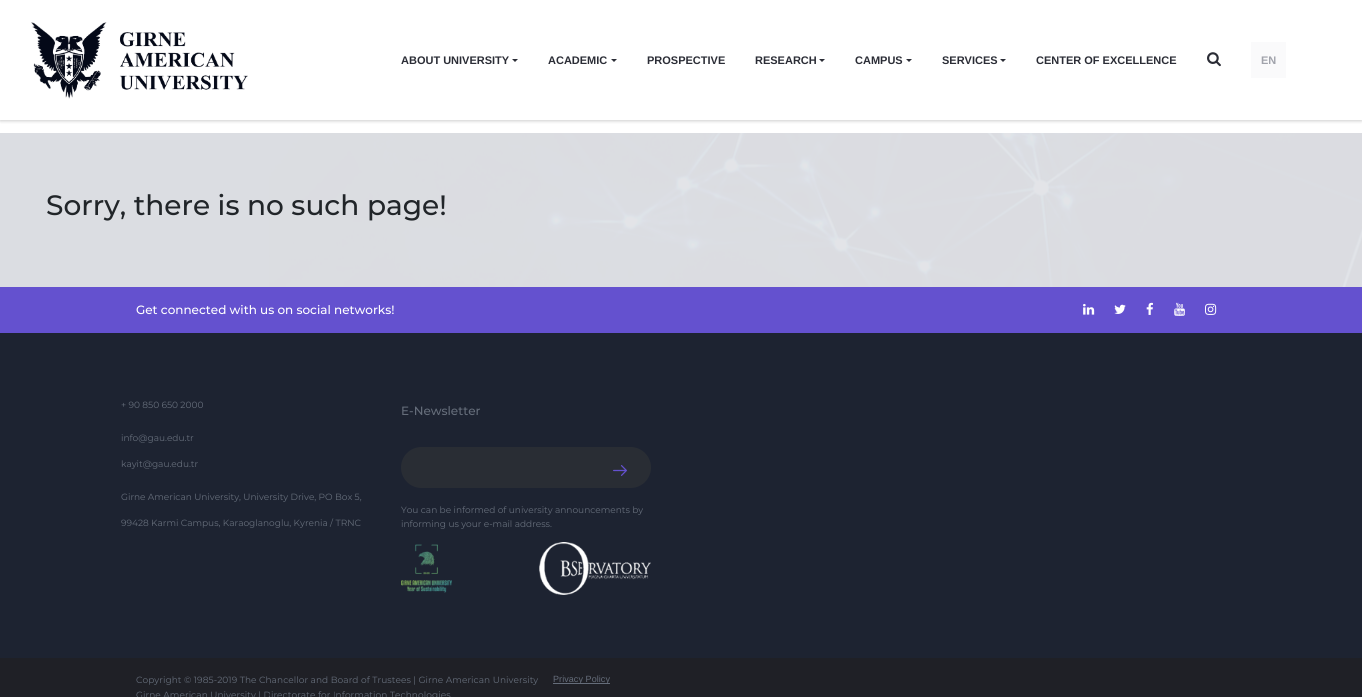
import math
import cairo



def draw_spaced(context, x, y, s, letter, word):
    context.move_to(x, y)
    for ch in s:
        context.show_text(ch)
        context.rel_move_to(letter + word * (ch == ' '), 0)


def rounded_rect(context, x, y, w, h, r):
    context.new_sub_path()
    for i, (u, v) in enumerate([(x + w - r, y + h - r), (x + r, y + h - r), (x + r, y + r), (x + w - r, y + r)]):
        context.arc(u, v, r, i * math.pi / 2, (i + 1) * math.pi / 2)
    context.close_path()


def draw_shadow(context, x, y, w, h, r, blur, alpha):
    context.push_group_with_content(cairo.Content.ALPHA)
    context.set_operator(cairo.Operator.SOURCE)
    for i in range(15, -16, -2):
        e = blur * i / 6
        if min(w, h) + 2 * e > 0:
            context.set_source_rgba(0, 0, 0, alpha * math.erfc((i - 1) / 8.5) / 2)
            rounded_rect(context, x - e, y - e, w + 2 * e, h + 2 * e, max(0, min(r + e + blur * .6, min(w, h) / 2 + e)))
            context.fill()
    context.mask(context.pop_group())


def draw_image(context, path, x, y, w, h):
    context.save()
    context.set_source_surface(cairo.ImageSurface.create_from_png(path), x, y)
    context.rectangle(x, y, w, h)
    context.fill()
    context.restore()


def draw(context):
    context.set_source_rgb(1, 1, 1)
    context.paint()
    context.set_source_rgb(0, 0, 0)
    draw_shadow(context, 0, 1, 1362, 120, 0, 1.5, 0.1)
    draw_shadow(context, 0, 1, 1362, 120, 0, 1.5, 0.1)
    context.set_source_rgb(1, 1, 1)
    context.rectangle(0, 0, 1362, 120)
    context.fill()
    draw_image(context, "images/1.png", 31, 22, 217, 77)
    context.set_source_rgb(43 / 255, 45 / 255, 54 / 255)
    context.new_path()
    context.move_to(512, 59)
    context.line_to(518, 59)
    context.line_to(515, 62)
    context.close_path()
    context.fill()
    context.new_path()
    context.move_to(611, 59)
    context.line_to(617, 59)
    context.line_to(614, 62)
    context.close_path()
    context.fill()
    context.new_path()
    context.move_to(819, 59)
    context.line_to(825, 59)
    context.line_to(822, 62)
    context.close_path()
    context.fill()
    context.new_path()
    context.move_to(906, 59)
    context.line_to(912, 59)
    context.line_to(909, 62)
    context.close_path()
    context.fill()
    context.new_path()
    context.move_to(1000, 59)
    context.line_to(1006, 59)
    context.line_to(1003, 62)
    context.close_path()
    context.fill()
    draw_image(context, "images/2.png", 1207, 52, 14, 15)
    context.set_source_rgb(250 / 255, 250 / 255, 251 / 255)
    context.rectangle(1251, 42, 35, 36)
    context.fill()
    context.set_source_rgb(219 / 255, 221 / 255, 226 / 255)
    context.rectangle(0, 133, 1362, 154)
    context.fill()
    draw_image(context, "images/3.png", 269, 133, 1093, 154)
    context.set_source_rgb(29 / 255, 35 / 255, 49 / 255)
    context.rectangle(0, 333, 1362, 325)
    context.fill()
    context.set_source_rgb(100 / 255, 81 / 255, 207 / 255)
    context.rectangle(0, 287, 1362, 46)
    context.fill()
    draw_image(context, "images/4.png", 1083, 303, 12, 12)
    draw_image(context, "images/5.png", 1114, 304, 12, 10)
    draw_image(context, "images/6.png", 1146, 302, 7, 13)
    draw_image(context, "images/7.png", 1174, 302, 11, 14)
    draw_image(context, "images/8.png", 1205, 303, 12, 12)
    context.set_source_rgb(41 / 255, 45 / 255, 52 / 255)
    rounded_rect(context, 401, 447, 250, 41, 20.5)
    context.fill()
    draw_image(context, "images/9.png", 613, 465, 14, 11)
    draw_image(context, "images/10.png", 401, 544, 51, 49)
    draw_image(context, "images/11.png", 539, 542, 112, 53)
    context.set_source_rgb(31 / 255, 32 / 255, 38 / 255)
    context.rectangle(0, 658, 1362, 39)
    context.fill()
    context.set_source_rgb(101 / 255, 109 / 255, 122 / 255)
    context.rectangle(553, 683, 57, 1)
    context.fill()
    context.select_font_face("Liberation Sans", cairo.FontSlant.NORMAL, cairo.FontWeight.BOLD)
    context.set_font_size(11)
    context.set_source_rgb(43 / 255, 45 / 255, 54 / 255)
    context.move_to(401, 64)
    context.show_text("ABOUT UNIVERSITY")
    context.move_to(548, 64)
    context.show_text("ACADEMIC")
    context.move_to(647, 64)
    context.show_text("PROSPECTIVE")
    context.move_to(755, 64)
    context.show_text("RESEARCH")
    context.move_to(855, 64)
    context.show_text("CAMPUS")
    context.move_to(942, 64)
    context.show_text("SERVICES")
    context.move_to(1036, 64)
    context.show_text("CENTER OF EXCELLENCE")
    context.set_source_rgb(161 / 255, 163 / 255, 171 / 255)
    context.move_to(1261, 64)
    context.show_text("EN")
    context.select_font_face("Montserrat Medium")
    context.set_font_size(28)
    context.set_source_rgb(33 / 255, 37 / 255, 41 / 255)
    context.move_to(46, 215)
    context.show_text("Sorry, there is no such page!")
    context.set_font_size(12)
    context.set_source_rgb(1, 1, 1)
    context.move_to(136, 314)
    context.show_text("Get connected with us on social networks!")
    context.select_font_face("Montserrat")
    context.set_font_size(9)
    context.set_source_rgb(101 / 255, 109 / 255, 122 / 255)
    context.move_to(121, 408)
    context.show_text("+ 90 850 650 2000")
    context.move_to(121, 441)
    context.show_text("info@gau.edu.tr")
    context.move_to(121, 467)
    context.show_text("kayit@gau.edu.tr")
    context.move_to(121, 500)
    context.show_text("Girne American University, University Drive, PO Box 5,")
    context.move_to(121, 526)
    context.show_text("99428 Karmi Campus, Karaoglanoglu, Kyrenia / TRNC")
    context.select_font_face("Montserrat Medium")
    context.set_font_size(12)
    context.move_to(401, 415)
    context.show_text("E-Newsletter")
    context.select_font_face("Montserrat")
    context.set_font_size(9)
    context.move_to(401, 513)
    context.show_text("You can be informed of university announcements by")
    context.move_to(401, 527)
    context.show_text("informing us your e-mail address.")
    draw_spaced(context, 136, 683, "Copyright © 1985-2019 The Chancellor and Board of Trustees | Girne American University", 0.07, 0)
    draw_spaced(context, 136, 698, "Girne American University | Directorate for Information Technologies", 0.07, 0)
    context.select_font_face("Liberation Sans")
    draw_spaced(context, 553, 682, "Privacy Policy", 0.07, 0)


surface = cairo.ImageSurface(cairo.Format.RGB24, 1362, 697)
context = cairo.Context(surface)
options = cairo.FontOptions()
options.set_hint_metrics(cairo.HintMetrics.OFF)
options.set_hint_style(cairo.HintStyle.NONE)
context.set_font_options(options)
context.set_miter_limit(4)
draw(context)
surface.write_to_png("out.png")
